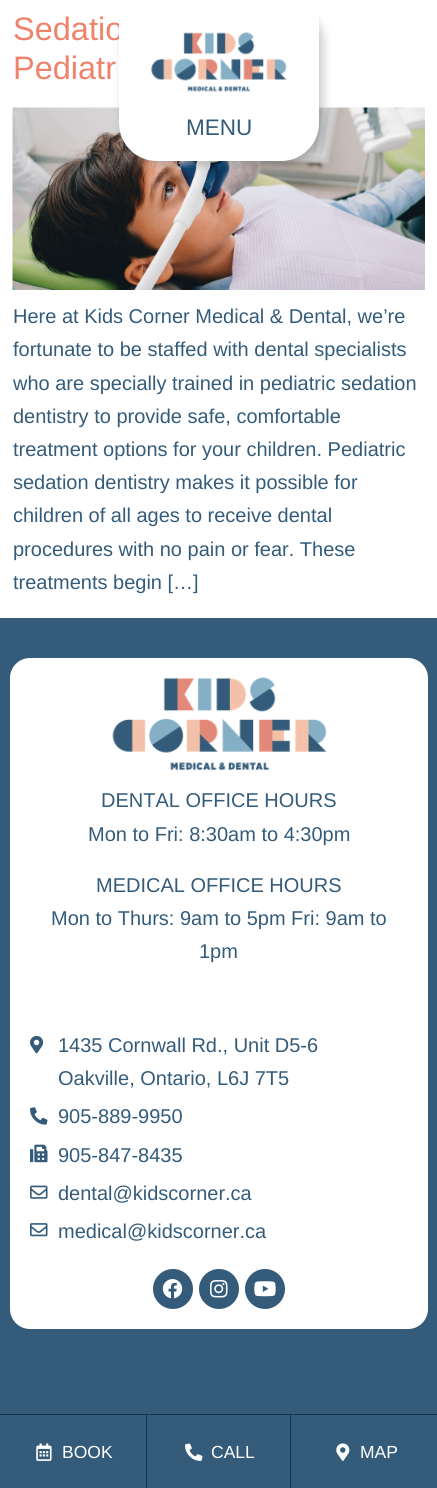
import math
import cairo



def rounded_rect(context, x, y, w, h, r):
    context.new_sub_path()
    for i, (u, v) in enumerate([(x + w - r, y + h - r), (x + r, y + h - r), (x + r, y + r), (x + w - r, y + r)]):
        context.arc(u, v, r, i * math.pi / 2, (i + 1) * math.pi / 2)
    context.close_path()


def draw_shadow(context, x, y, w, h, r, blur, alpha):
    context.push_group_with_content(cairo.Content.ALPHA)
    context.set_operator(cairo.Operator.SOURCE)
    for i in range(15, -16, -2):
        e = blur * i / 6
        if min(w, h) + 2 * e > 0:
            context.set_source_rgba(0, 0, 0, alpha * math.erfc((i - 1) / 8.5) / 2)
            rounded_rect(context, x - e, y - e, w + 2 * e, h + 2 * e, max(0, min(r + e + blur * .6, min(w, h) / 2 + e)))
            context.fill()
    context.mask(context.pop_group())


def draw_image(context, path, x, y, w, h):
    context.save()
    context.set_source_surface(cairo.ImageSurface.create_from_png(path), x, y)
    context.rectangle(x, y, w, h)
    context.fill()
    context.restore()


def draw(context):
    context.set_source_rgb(1, 1, 1)
    context.paint()
    draw_image(context, "images/1.png", 12, 107, 413, 183)
    context.set_source_rgb(0, 0, 0)
    draw_shadow(context, 123, 4, 200, 161, 38, 5, 0.22)
    context.set_source_rgb(52 / 255, 92 / 255, 122 / 255)
    context.rectangle(0, 618, 437, 796)
    context.fill()
    context.set_source_rgb(1, 1, 1)
    rounded_rect(context, 10, 658, 418, 671, 20)
    context.fill()
    draw_image(context, "images/3.png", 112, 677, 215, 93)
    draw_image(context, "images/4.png", 30, 1035, 14, 19)
    draw_image(context, "images/5.png", 30, 1107, 18, 18)
    draw_image(context, "images/6.png", 30, 1144, 18, 19)
    draw_image(context, "images/7.png", 30, 1185, 18, 14)
    draw_image(context, "images/8.png", 30, 1223, 18, 14)
    context.set_source_rgb(52 / 255, 92 / 255, 122 / 255)
    context.arc(173, 1289, 20, 0, 2 * math.pi)
    context.fill()
    draw_image(context, "images/9.png", 162, 1279, 21, 20)
    context.arc(219, 1289, 20, 0, 2 * math.pi)
    context.fill()
    draw_image(context, "images/10.png", 210, 1279, 18, 19)
    context.arc(265, 1289, 20, 0, 2 * math.pi)
    context.fill()
    draw_image(context, "images/11.png", 254, 1281, 22, 16)
    context.rectangle(0, 1415, 437, 73)
    context.fill()
    context.set_source_rgb(16 / 255, 51 / 255, 78 / 255)
    context.rectangle(0, 1414, 437, 1)
    context.fill()
    draw_image(context, "images/12.png", 36, 1443, 16, 18)
    context.rectangle(290, 1415, 1, 73)
    context.fill()
    context.rectangle(146, 1415, 1, 73)
    context.fill()
    draw_image(context, "images/13.png", 185, 1443, 18, 18)
    draw_image(context, "images/14.png", 336, 1443, 14, 18)
    context.select_font_face("Liberation Sans")
    context.set_font_size(32.5)
    context.set_source_rgb(238 / 255, 130 / 255, 106 / 255)
    context.move_to(13, 40)
    context.show_text("Sedatio")
    context.move_to(13, 79)
    context.show_text("Pediatr")
    context.set_font_size(20)
    context.set_source_rgb(52 / 255, 92 / 255, 122 / 255)
    context.move_to(13, 323)
    context.show_text("Here at Kids Corner Medical & Dental, we’re")
    context.move_to(13, 356)
    context.show_text("fortunate to be staffed with dental specialists")
    context.move_to(13, 390)
    context.show_text("who are specially trained in pediatric sedation")
    context.move_to(13, 423)
    context.show_text("dentistry to provide safe, comfortable")
    context.move_to(13, 456)
    context.show_text("treatment options for your children. Pediatric")
    context.move_to(13, 489)
    context.show_text("sedation dentistry makes it possible for")
    context.move_to(13, 522)
    context.show_text("children of all ages to receive dental")
    context.move_to(13, 556)
    context.show_text("procedures with no pain or fear. These")
    context.move_to(13, 589)
    context.show_text("treatments begin […]")
    context.set_source_rgb(1, 1, 1)
    context.new_path()
    context.move_to(119, 0)
    context.line_to(319, 0)
    context.line_to(319, 123)
    context.curve_to(319, 144, 302, 161, 281, 161)
    context.line_to(157, 161)
    context.curve_to(136, 161, 119, 144, 119, 123)
    context.close_path()
    context.fill()
    draw_image(context, "images/2.png", 151, 32, 136, 60)
    context.set_font_size(22.5)
    context.set_source_rgb(52 / 255, 92 / 255, 122 / 255)
    context.move_to(186, 135)
    context.show_text("MENU")
    context.set_font_size(20)
    context.move_to(101, 807)
    context.show_text("DENTAL OFFICE HOURS")
    context.move_to(88, 841)
    context.show_text("Mon to Fri: 8:30am to 4:30pm")
    context.move_to(96, 892)
    context.show_text("MEDICAL OFFICE HOURS")
    context.move_to(51, 925)
    context.show_text("Mon to Thurs: 9am to 5pm Fri: 9am to")
    context.move_to(199, 958)
    context.show_text("1pm")
    context.move_to(58, 1052)
    context.show_text("1435 Cornwall Rd., Unit D5-6")
    context.move_to(58, 1085)
    context.show_text("Oakville, Ontario, L6J 7T5")
    context.move_to(58, 1123)
    context.show_text("905-889-9950")
    context.move_to(58, 1162)
    context.show_text("905-847-8435")
    context.move_to(58, 1200)
    context.show_text("dental@kidscorner.ca")
    context.move_to(58, 1238)
    context.show_text("medical@kidscorner.ca")
    context.set_font_size(17.5)
    context.set_source_rgb(1, 1, 1)
    context.move_to(62, 1458)
    context.show_text("BOOK")
    context.move_to(211, 1458)
    context.show_text("CALL")
    context.move_to(360, 1458)
    context.show_text("MAP")


surface = cairo.ImageSurface(cairo.Format.RGB24, 437, 1488)
context = cairo.Context(surface)
options = cairo.FontOptions()
options.set_hint_metrics(cairo.HintMetrics.OFF)
options.set_hint_style(cairo.HintStyle.NONE)
context.set_font_options(options)
context.set_miter_limit(4)
draw(context)
surface.write_to_png("out.png")
